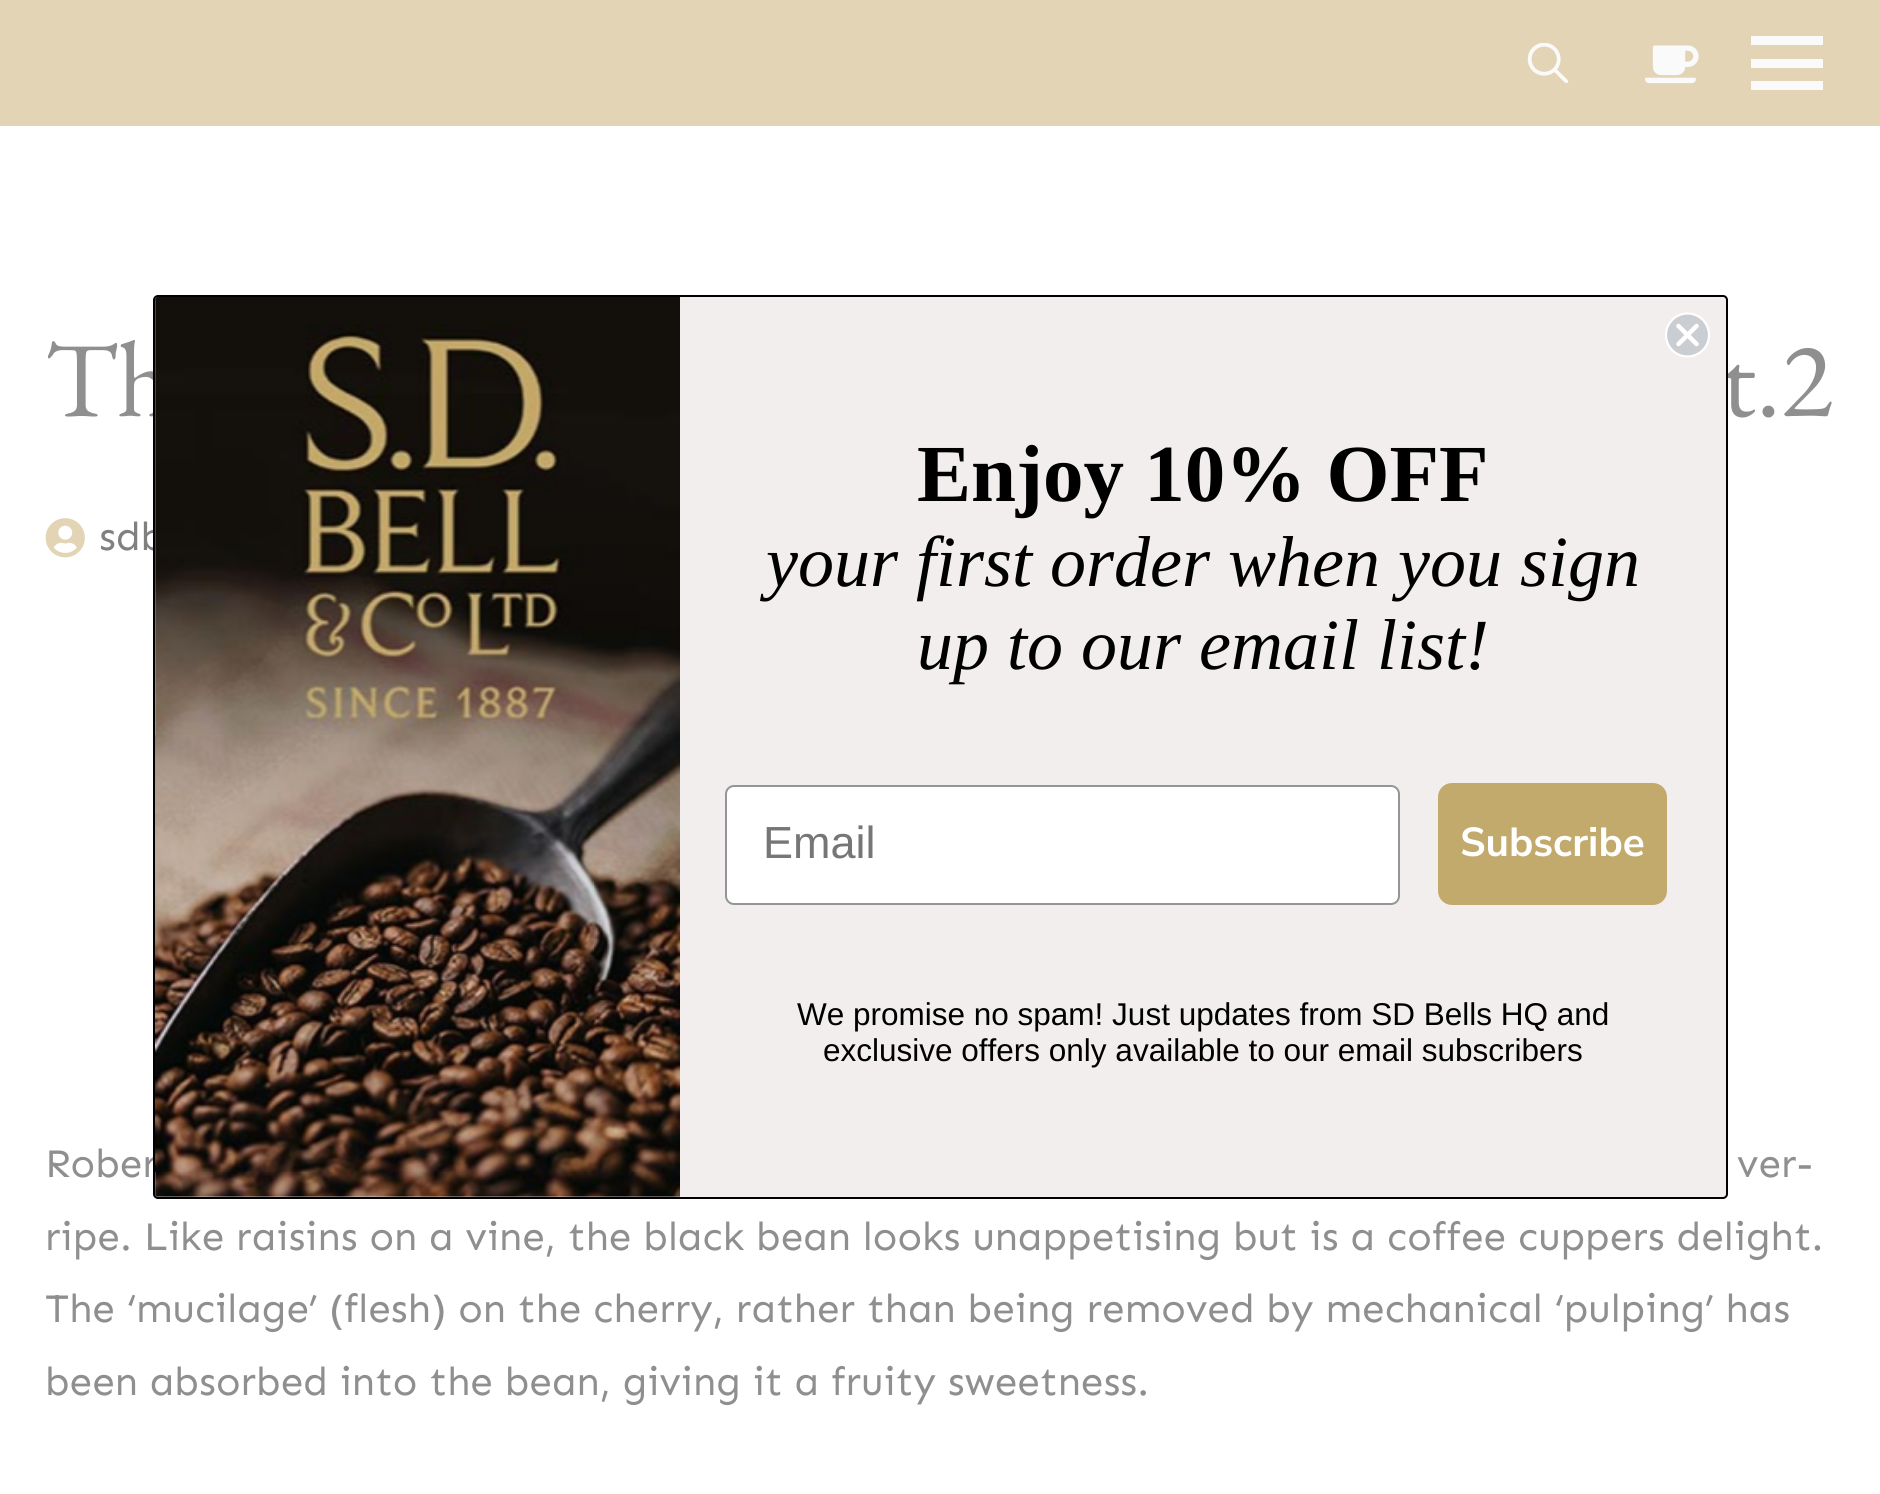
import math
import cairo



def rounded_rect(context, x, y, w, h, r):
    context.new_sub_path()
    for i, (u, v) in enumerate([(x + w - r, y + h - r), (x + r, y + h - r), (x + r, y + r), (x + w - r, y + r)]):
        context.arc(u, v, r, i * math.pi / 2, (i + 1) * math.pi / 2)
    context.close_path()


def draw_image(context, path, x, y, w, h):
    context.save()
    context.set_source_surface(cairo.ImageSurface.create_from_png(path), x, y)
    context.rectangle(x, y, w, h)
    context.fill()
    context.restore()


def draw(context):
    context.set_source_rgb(1, 1, 1)
    context.paint()
    context.set_source_rgb(226 / 255, 212 / 255, 181 / 255)
    context.rectangle(0, 0, 1880, 126)
    context.fill()
    draw_image(context, "images/1.png", 1527, 43, 42, 40)
    draw_image(context, "images/2.png", 1645, 45, 54, 39)
    context.set_source_rgb(250 / 255, 250 / 255, 251 / 255)
    context.rectangle(1751, 59, 72, 9)
    context.fill()
    context.rectangle(1751, 36, 72, 9)
    context.fill()
    context.rectangle(1751, 81, 72, 9)
    context.fill()
    draw_image(context, "images/3.png", 45, 518, 40, 40)
    draw_image(context, "images/4.png", 680, 518, 2, 31)
    context.select_font_face("EB Garamond")
    context.set_font_size(108)
    context.set_source_rgb(144 / 255, 143 / 255, 144 / 255)
    context.move_to(45, 416)
    context.show_text("Th")
    context.move_to(1722, 416)
    context.show_text("t.2")
    context.select_font_face("Sen")
    context.set_font_size(40.5)
    context.set_source_rgb(128 / 255, 128 / 255, 128 / 255)
    context.move_to(99, 550)
    context.show_text("sdb")
    context.set_source_rgb(144 / 255, 143 / 255, 144 / 255)
    context.move_to(45, 1177)
    context.show_text("Rober")
    context.move_to(1737, 1177)
    context.show_text("ver-")
    context.move_to(45, 1250)
    context.show_text("ripe. Like raisins on a vine, the black bean looks unappetising but is a coffee cuppers delight.")
    context.move_to(45, 1322)
    context.show_text("The ‘mucilage’ (flesh) on the cherry, rather than being removed by mechanical ‘pulping’ has")
    context.move_to(45, 1395)
    context.show_text("been absorbed into the bean, giving it a fruity sweetness.")
    context.set_source_rgba(242 / 255, 238 / 255, 238 / 255, 0.99)
    rounded_rect(context, 154, 296, 1573, 902, 4)
    context.fill_preserve()
    context.set_source_rgb(0, 0, 0)
    context.stroke()
    context.set_source_rgb(202 / 255, 205 / 255, 210 / 255)
    context.arc(1687.5, 335, 21.5, 0, 2 * math.pi)
    context.fill_preserve()
    context.set_source_rgb(1, 1, 1)
    context.set_line_width(2.2)
    context.stroke()
    context.new_path()
    context.move_to(1678.5, 326)
    context.line_to(1696.5, 344)
    context.move_to(1678.5, 344)
    context.line_to(1696.5, 326)
    context.close_path()
    context.set_line_width(4.5)
    context.set_line_cap(cairo.LineCap.ROUND)
    context.set_line_join(cairo.LineJoin.ROUND)
    context.stroke()
    draw_image(context, "images/5.png", 155, 297, 525, 900)
    context.select_font_face("Liberation Serif", cairo.FontSlant.NORMAL, cairo.FontWeight.BOLD)
    context.set_font_size(81)
    context.set_source_rgb(0, 0, 0)
    context.move_to(917, 501)
    context.show_text("Enjoy 10% OFF")
    context.select_font_face("Liberation Serif", cairo.FontSlant.ITALIC)
    context.set_font_size(72)
    context.move_to(766, 586)
    context.show_text("your first order when you sign")
    context.move_to(917, 669)
    context.show_text("up to our email list!")
    context.set_source_rgb(1, 1, 1)
    rounded_rect(context, 726, 786, 673, 118, 8)
    context.fill_preserve()
    context.set_source_rgb(148 / 255, 149 / 255, 150 / 255)
    context.set_line_width(2)
    context.set_line_cap(cairo.LineCap.BUTT)
    context.set_line_join(cairo.LineJoin.MITER)
    context.stroke()
    context.select_font_face("Liberation Sans")
    context.set_font_size(45)
    context.set_source_rgb(118 / 255, 118 / 255, 118 / 255)
    context.move_to(763, 858)
    context.show_text("Email")
    context.set_source_rgb(194 / 255, 170 / 255, 108 / 255)
    rounded_rect(context, 1438, 783, 229, 122, 14)
    context.fill()
    context.select_font_face("Nunito Sans", cairo.FontSlant.NORMAL, cairo.FontWeight.BOLD)
    context.set_font_size(40.5)
    context.set_source_rgb(1, 1, 1)
    context.move_to(1460, 856)
    context.show_text("Subscribe")
    context.select_font_face("Liberation Sans")
    context.set_font_size(31.5)
    context.set_source_rgb(0, 0, 0)
    context.move_to(797, 1025)
    context.show_text("We promise no spam! Just updates from SD Bells HQ and")
    context.move_to(823, 1061)
    context.show_text("exclusive offers only available to our email subscribers")


surface = cairo.ImageSurface(cairo.Format.RGB24, 1880, 1494)
context = cairo.Context(surface)
options = cairo.FontOptions()
options.set_hint_metrics(cairo.HintMetrics.OFF)
options.set_hint_style(cairo.HintStyle.NONE)
context.set_font_options(options)
context.set_miter_limit(4)
draw(context)
surface.write_to_png("out.png")
